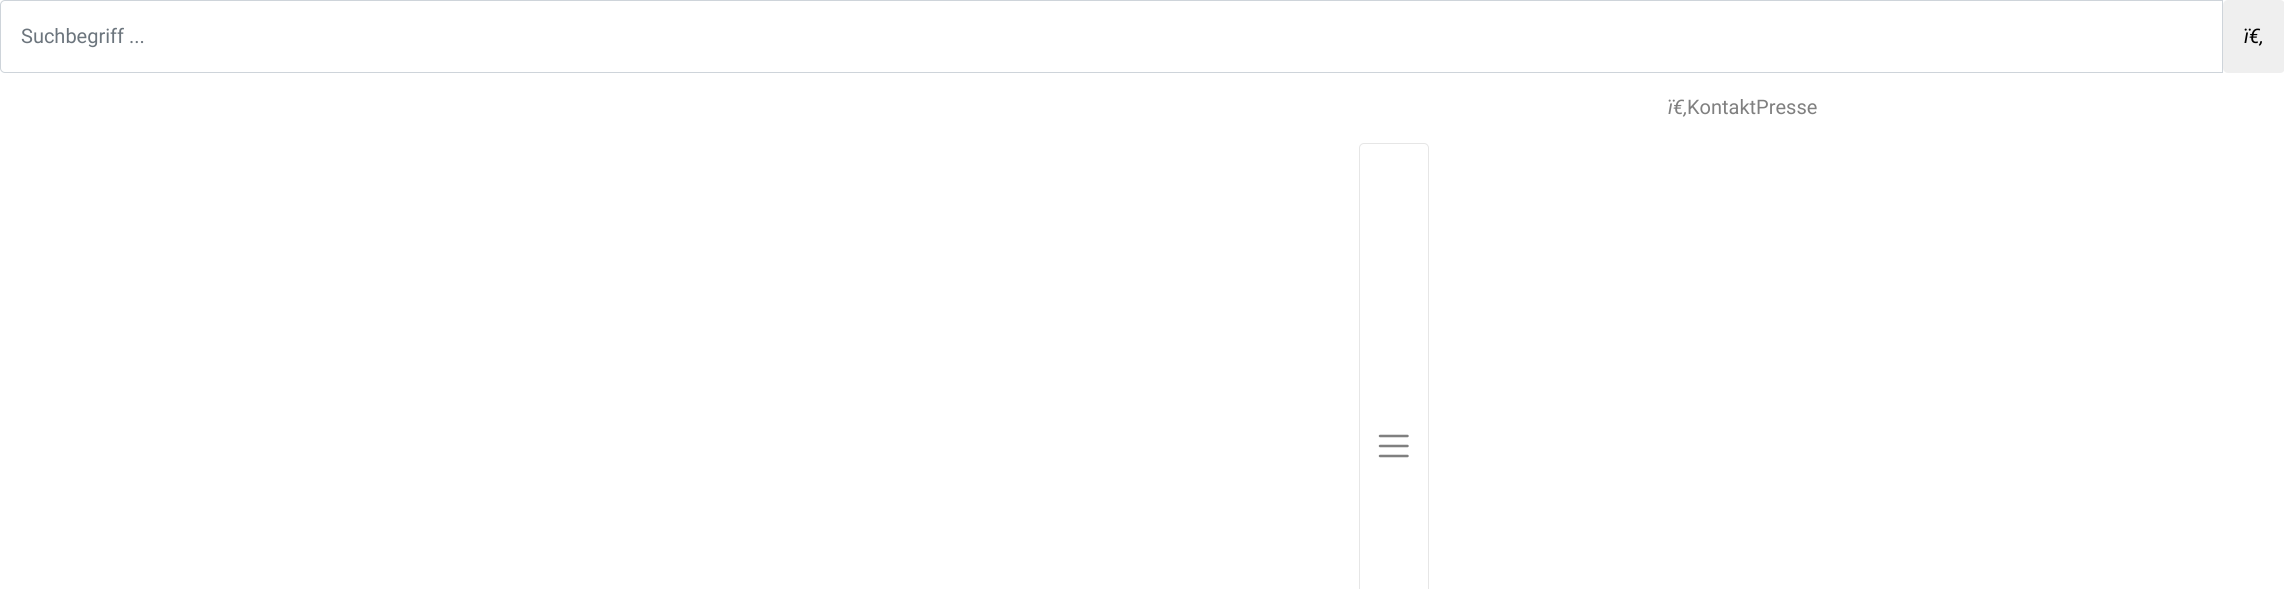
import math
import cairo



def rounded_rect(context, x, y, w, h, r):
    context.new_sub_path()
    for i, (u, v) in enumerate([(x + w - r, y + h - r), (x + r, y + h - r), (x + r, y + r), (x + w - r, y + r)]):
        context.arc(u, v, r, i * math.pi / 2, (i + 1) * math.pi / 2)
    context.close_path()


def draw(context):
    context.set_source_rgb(1, 1, 1)
    context.paint()
    context.new_path()
    context.move_to(5, 0.5)
    context.line_to(2222.5, 0.5)
    context.line_to(2222.5, 72.5)
    context.line_to(5, 72.5)
    context.curve_to(2.5, 72.5, 0.5, 70.5, 0.5, 68)
    context.line_to(0.5, 5)
    context.curve_to(0.5, 2.5, 2.5, 0.5, 5, 0.5)
    context.close_path()
    context.set_source_rgb(206 / 255, 212 / 255, 218 / 255)
    context.set_line_width(1)
    context.stroke()
    context.set_source_rgb(239 / 255, 239 / 255, 239 / 255)
    rounded_rect(context, 2223, 0, 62, 73, 5)
    context.fill()
    rounded_rect(context, 1359.5, 143.5, 69, 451, 4.5)
    context.set_source_rgb(230 / 255, 230 / 255, 230 / 255)
    context.stroke()
    context.new_path()
    context.move_to(1380, 436)
    context.line_to(1407.5, 436)
    context.move_to(1380, 446)
    context.line_to(1407.5, 446)
    context.move_to(1380, 456)
    context.line_to(1407.5, 456)
    context.set_source_rgb(128 / 255, 128 / 255, 128 / 255)
    context.set_line_width(2.5)
    context.set_line_cap(cairo.LineCap.ROUND)
    context.stroke()
    context.select_font_face("Roboto")
    context.set_font_size(20)
    context.set_source_rgb(108 / 255, 117 / 255, 125 / 255)
    context.move_to(21, 43)
    context.show_text("Suchbegriff ...")
    context.select_font_face("Roboto", cairo.FontSlant.ITALIC)
    context.set_source_rgb(0, 0, 0)
    context.move_to(2244, 43)
    context.show_text("ï€‚")
    context.set_source_rgb(128 / 255, 128 / 255, 128 / 255)
    context.move_to(1668, 114)
    context.show_text("ï€‚")
    context.select_font_face("Roboto")
    context.move_to(1687, 114)
    context.show_text("KontaktPresse")


surface = cairo.ImageSurface(cairo.Format.RGB24, 2284, 589)
context = cairo.Context(surface)
options = cairo.FontOptions()
options.set_hint_metrics(cairo.HintMetrics.OFF)
options.set_hint_style(cairo.HintStyle.NONE)
context.set_font_options(options)
context.set_miter_limit(4)
draw(context)
surface.write_to_png("out.png")
